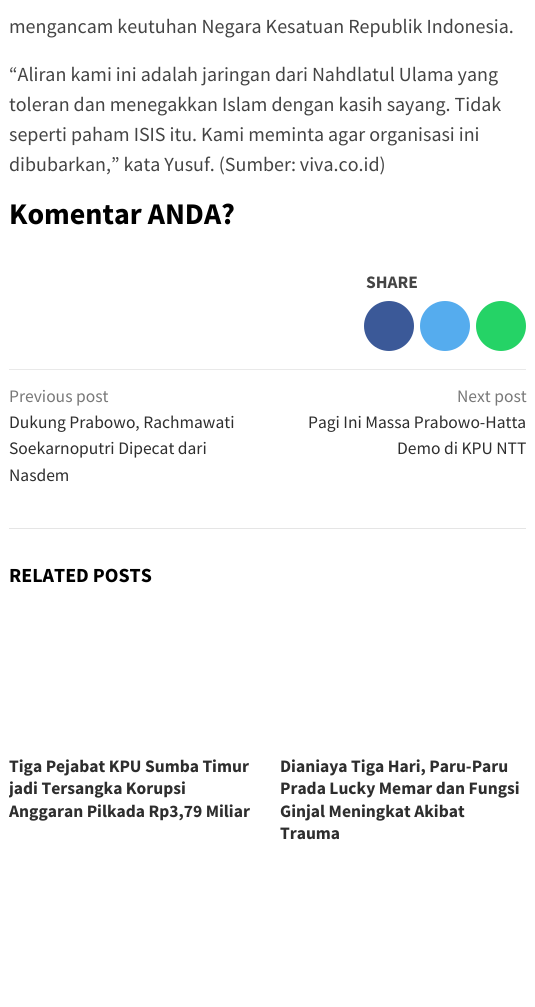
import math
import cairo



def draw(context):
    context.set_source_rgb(1, 1, 1)
    context.paint()
    context.set_source_rgb(229 / 255, 229 / 255, 229 / 255)
    context.rectangle(9, 528, 517, 1)
    context.fill()
    context.set_source_rgb(59 / 255, 89 / 255, 152 / 255)
    context.arc(389, 326, 25, 0, 2 * math.pi)
    context.fill()
    context.set_source_rgb(85 / 255, 172 / 255, 238 / 255)
    context.arc(445, 326, 25, 0, 2 * math.pi)
    context.fill()
    context.set_source_rgb(37 / 255, 211 / 255, 102 / 255)
    context.arc(501, 326, 25, 0, 2 * math.pi)
    context.fill()
    context.set_source_rgb(233 / 255, 233 / 255, 233 / 255)
    context.rectangle(9, 369, 517, 1)
    context.fill()
    context.select_font_face("Source Sans Pro")
    context.set_font_size(20)
    context.set_source_rgb(68 / 255, 68 / 255, 68 / 255)
    context.move_to(9, 33)
    context.show_text("mengancam keutuhan Negara Kesatuan Republik Indonesia.")
    context.move_to(9, 81)
    context.show_text("“Aliran kami ini adalah jaringan dari Nahdlatul Ulama yang")
    context.move_to(9, 111)
    context.show_text("toleran dan menegakkan Islam dengan kasih sayang. Tidak")
    context.move_to(9, 141)
    context.show_text("seperti paham ISIS itu. Kami meminta agar organisasi ini")
    context.move_to(9, 171)
    context.show_text("dibubarkan,” kata Yusuf. (Sumber: viva.co.id)")
    context.select_font_face("Source Sans Pro", cairo.FontSlant.NORMAL, cairo.FontWeight.BOLD)
    context.set_font_size(30)
    context.set_source_rgb(0, 0, 0)
    context.move_to(9, 224)
    context.show_text("Komentar ANDA?")
    context.set_font_size(17.5)
    context.set_source_rgb(68 / 255, 68 / 255, 68 / 255)
    context.move_to(366, 288)
    context.show_text("SHARE")
    context.select_font_face("Source Sans Pro")
    context.set_source_rgb(120 / 255, 120 / 255, 120 / 255)
    context.move_to(9, 402)
    context.show_text("Previous post")
    context.set_source_rgb(46 / 255, 46 / 255, 46 / 255)
    context.move_to(9, 428)
    context.show_text("Dukung Prabowo, Rachmawati")
    context.move_to(9, 454)
    context.show_text("Soekarnoputri Dipecat dari")
    context.move_to(9, 481)
    context.show_text("Nasdem")
    context.set_source_rgb(120 / 255, 120 / 255, 120 / 255)
    context.move_to(457, 402)
    context.show_text("Next post")
    context.set_source_rgb(46 / 255, 46 / 255, 46 / 255)
    context.move_to(308, 428)
    context.show_text("Pagi Ini Massa Prabowo-Hatta")
    context.move_to(397, 454)
    context.show_text("Demo di KPU NTT")
    context.select_font_face("Source Sans Pro", cairo.FontSlant.NORMAL, cairo.FontWeight.BOLD)
    context.set_font_size(20)
    context.set_source_rgb(0, 0, 0)
    context.move_to(9, 582)
    context.show_text("RELATED POSTS")
    context.set_font_size(17.5)
    context.set_source_rgb(46 / 255, 46 / 255, 46 / 255)
    context.move_to(9, 772)
    context.show_text("Tiga Pejabat KPU Sumba Timur")
    context.save()
    context.rectangle(9, 546, 517, 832)
    context.clip()
    context.move_to(9, 794)
    context.show_text("jadi Tersangka Korupsi")
    context.restore()
    context.move_to(9, 817)
    context.show_text("Anggaran Pilkada Rp3,79 Miliar")
    context.move_to(280, 772)
    context.show_text("Dianiaya Tiga Hari, Paru-Paru")
    context.move_to(280, 794)
    context.show_text("Prada Lucky Memar dan Fungsi")
    context.move_to(280, 817)
    context.show_text("Ginjal Meningkat Akibat")
    context.move_to(280, 839)
    context.show_text("Trauma")


surface = cairo.ImageSurface(cairo.Format.RGB24, 535, 1007)
context = cairo.Context(surface)
options = cairo.FontOptions()
options.set_hint_metrics(cairo.HintMetrics.OFF)
options.set_hint_style(cairo.HintStyle.NONE)
context.set_font_options(options)
context.set_miter_limit(4)
draw(context)
surface.write_to_png("out.png")
